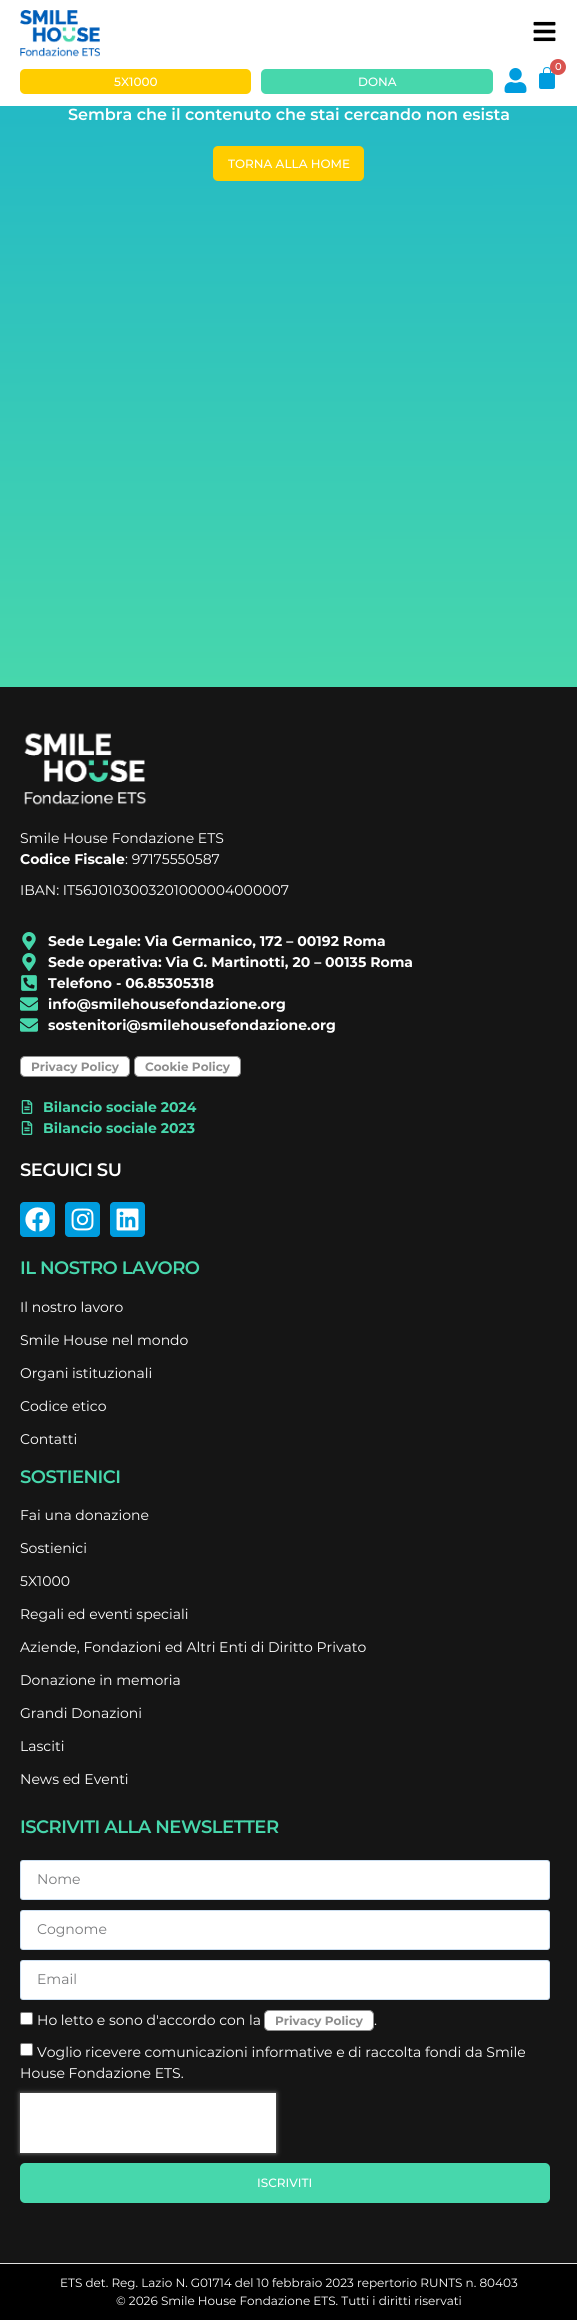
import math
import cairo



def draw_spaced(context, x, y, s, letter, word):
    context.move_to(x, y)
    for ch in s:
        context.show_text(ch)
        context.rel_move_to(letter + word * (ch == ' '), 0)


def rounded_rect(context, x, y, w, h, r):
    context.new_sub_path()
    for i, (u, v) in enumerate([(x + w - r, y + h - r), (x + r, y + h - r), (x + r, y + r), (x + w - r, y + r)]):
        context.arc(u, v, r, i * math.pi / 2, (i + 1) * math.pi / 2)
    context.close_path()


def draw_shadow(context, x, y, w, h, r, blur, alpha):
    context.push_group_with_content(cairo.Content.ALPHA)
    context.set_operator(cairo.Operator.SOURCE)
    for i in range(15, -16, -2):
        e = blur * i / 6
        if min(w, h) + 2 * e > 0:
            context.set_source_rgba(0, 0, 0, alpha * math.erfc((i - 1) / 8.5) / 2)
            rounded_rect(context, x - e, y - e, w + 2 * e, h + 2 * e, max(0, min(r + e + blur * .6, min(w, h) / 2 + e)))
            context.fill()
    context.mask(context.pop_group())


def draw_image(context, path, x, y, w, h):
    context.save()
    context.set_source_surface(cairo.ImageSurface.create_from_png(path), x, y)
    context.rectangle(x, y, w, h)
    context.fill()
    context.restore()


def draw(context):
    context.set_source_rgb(1, 1, 1)
    context.paint()
    draw_image(context, "images/1.png", 20, 10, 80, 47)
    draw_image(context, "images/2.png", 533, 21, 23, 21)
    draw_image(context, "images/3.png", 539, 67, 16, 22)
    context.set_source_rgb(217 / 255, 83 / 255, 79 / 255)
    context.arc(558, 67, 8, 0, 2 * math.pi)
    context.fill()
    context.set_source_rgb(1, 205 / 255, 0)
    rounded_rect(context, 20, 69, 231, 25, 5)
    context.fill()
    context.set_source_rgb(71 / 255, 215 / 255, 172 / 255)
    rounded_rect(context, 261, 69, 232, 25, 5)
    context.fill()
    draw_image(context, "images/4.png", 504, 68, 23, 25)
    gradient = cairo.LinearGradient(288, -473, 289, 687)
    gradient.add_color_stop_rgba(0, 0, 156 / 255, 222 / 255, 1)
    gradient.add_color_stop_rgba(1, 71 / 255, 215 / 255, 172 / 255, 1)
    context.set_source(gradient)
    context.rectangle(0, 106, 577, 581)
    context.fill()
    context.set_source_rgb(1, 205 / 255, 0)
    rounded_rect(context, 213, 146, 151, 35, 5)
    context.fill()
    context.set_source_rgb(21 / 255, 21 / 255, 21 / 255)
    context.rectangle(0, 687, 577, 1576)
    context.fill()
    draw_image(context, "images/5.png", 24, 733, 123, 72)
    draw_image(context, "images/6.png", 22, 932, 14, 18)
    draw_image(context, "images/6.png", 22, 953, 14, 18)
    draw_image(context, "images/7.png", 21, 975, 16, 16)
    draw_image(context, "images/8.png", 20, 997, 18, 14)
    draw_image(context, "images/8.png", 20, 1018, 18, 14)
    context.set_source_rgb(1, 1, 1)
    rounded_rect(context, 20.5, 1056.5, 109, 20, 4.5)
    context.fill_preserve()
    context.set_source_rgb(141 / 255, 141 / 255, 141 / 255)
    context.set_line_width(1)
    context.stroke()
    context.set_source_rgb(1, 1, 1)
    rounded_rect(context, 134.5, 1056.5, 106, 20, 4.5)
    context.fill_preserve()
    context.set_source_rgb(141 / 255, 141 / 255, 141 / 255)
    context.stroke()
    draw_image(context, "images/9.png", 21, 1100, 12, 14)
    draw_image(context, "images/9.png", 21, 1121, 12, 14)
    context.set_source_rgb(0, 156 / 255, 222 / 255)
    rounded_rect(context, 20, 1202, 35, 35, 4)
    context.fill()
    draw_image(context, "images/10.png", 25, 1207, 25, 25)
    rounded_rect(context, 65, 1202, 35, 35, 4)
    context.fill()
    draw_image(context, "images/11.png", 71, 1208, 23, 23)
    rounded_rect(context, 110, 1202, 35, 35, 4)
    context.fill()
    draw_image(context, "images/12.png", 116, 1208, 23, 23)
    context.set_source_rgb(1, 1, 1)
    rounded_rect(context, 20, 1860, 530, 40, 3)
    context.fill()
    rounded_rect(context, 20.5, 1860.5, 529, 39, 2.5)
    context.set_source_rgba(0, 94 / 255, 184 / 255, 0.2)
    context.stroke()
    context.set_source_rgb(1, 1, 1)
    rounded_rect(context, 20, 1910, 530, 40, 3)
    context.fill()
    rounded_rect(context, 20.5, 1910.5, 529, 39, 2.5)
    context.set_source_rgba(0, 94 / 255, 184 / 255, 0.2)
    context.stroke()
    context.set_source_rgb(1, 1, 1)
    rounded_rect(context, 20, 1960, 530, 40, 3)
    context.fill()
    rounded_rect(context, 20.5, 1960.5, 529, 39, 2.5)
    context.set_source_rgba(0, 94 / 255, 184 / 255, 0.2)
    context.stroke()
    context.set_source_rgb(1, 1, 1)
    rounded_rect(context, 20.5, 2012.5, 12, 12, 1.5)
    context.fill_preserve()
    context.set_source_rgb(118 / 255, 118 / 255, 118 / 255)
    context.stroke()
    context.set_source_rgb(1, 1, 1)
    rounded_rect(context, 264.5, 2010.5, 109, 20, 4.5)
    context.fill_preserve()
    context.set_source_rgb(141 / 255, 141 / 255, 141 / 255)
    context.stroke()
    context.set_source_rgb(1, 1, 1)
    rounded_rect(context, 20.5, 2043.5, 12, 12, 1.5)
    context.fill_preserve()
    context.set_source_rgb(118 / 255, 118 / 255, 118 / 255)
    context.stroke()
    context.set_source_rgb(1, 1, 1)
    context.rectangle(20, 2093, 256, 60)
    context.fill()
    context.save()
    context.set_fill_rule(cairo.FillRule.EVEN_ODD)
    context.new_path()
    context.move_to(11, 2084)
    context.line_to(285, 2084)
    context.line_to(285, 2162)
    context.line_to(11, 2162)
    context.close_path()
    context.move_to(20, 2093)
    context.line_to(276, 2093)
    context.line_to(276, 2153)
    context.line_to(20, 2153)
    context.close_path()
    context.clip()
    context.set_source_rgb(128 / 255, 128 / 255, 128 / 255)
    draw_shadow(context, 20, 2093, 256, 60, 0, 2.5, 1)
    context.restore()
    context.set_source_rgb(71 / 255, 215 / 255, 172 / 255)
    rounded_rect(context, 20, 2163, 530, 40, 5)
    context.fill()
    context.set_source_rgb(0, 0, 0)
    context.rectangle(0, 2264, 577, 56)
    context.fill()
    context.set_source_rgb(225 / 255, 225 / 255, 225 / 255)
    context.rectangle(0, 2263, 577, 1)
    context.fill()
    context.select_font_face("Montserrat Medium")
    context.set_font_size(10)
    context.set_source_rgb(1, 1, 1)
    context.move_to(555, 70)
    context.show_text("0")
    context.set_font_size(12)
    context.move_to(114, 86)
    context.show_text("5X1000")
    context.move_to(358, 86)
    context.show_text("DONA")
    context.select_font_face("Montserrat SemiBold")
    context.set_font_size(16)
    context.move_to(68, 120)
    context.show_text("Sembra che il contenuto che stai cercando non esista")
    context.select_font_face("Montserrat Medium")
    context.set_font_size(12)
    context.move_to(228, 168)
    context.show_text("TORNA ALLA HOME")
    context.select_font_face("Montserrat")
    context.set_font_size(14)
    context.move_to(20, 843)
    context.show_text("Smile House Fondazione ETS")
    context.select_font_face("Montserrat", cairo.FontSlant.NORMAL, cairo.FontWeight.BOLD)
    context.move_to(20, 864)
    context.show_text("Codice Fiscale")
    context.select_font_face("Montserrat")
    context.move_to(125, 864)
    context.show_text(": 97175550587")
    context.move_to(20, 895)
    context.show_text("IBAN: IT56J0103003201000004000007")
    context.select_font_face("Montserrat", cairo.FontSlant.NORMAL, cairo.FontWeight.BOLD)
    context.move_to(48, 946)
    context.show_text("Sede Legale: Via Germanico, 172 – 00192 Roma")
    context.move_to(48, 967)
    context.show_text("Sede operativa: Via G. Martinotti, 20 – 00135 Roma")
    context.move_to(48, 988)
    context.show_text("Telefono - 06.85305318")
    context.move_to(48, 1009)
    context.show_text("info@smilehousefondazione.org")
    context.move_to(48, 1030)
    context.show_text("sostenitori@smilehousefondazione.org")
    context.set_font_size(12)
    context.set_source_rgb(141 / 255, 141 / 255, 141 / 255)
    context.move_to(31, 1071)
    context.show_text("Privacy Policy")
    context.move_to(145, 1071)
    context.show_text("Cookie Policy")
    context.set_font_size(14)
    context.set_source_rgb(71 / 255, 215 / 255, 172 / 255)
    context.move_to(43, 1112)
    context.show_text("Bilancio sociale 2024")
    context.move_to(43, 1133)
    context.show_text("Bilancio sociale 2023")
    context.select_font_face("Montserrat SemiBold")
    context.set_font_size(18)
    context.set_source_rgb(1, 1, 1)
    draw_spaced(context, 20, 1176, "SEGUICI SU", -0.5, 0)
    context.set_source_rgb(71 / 255, 215 / 255, 172 / 255)
    draw_spaced(context, 20, 1274, "IL NOSTRO LAVORO", -0.5, 0)
    context.select_font_face("Montserrat")
    context.set_font_size(14)
    context.set_source_rgb(1, 1, 1)
    context.move_to(20, 1312)
    context.show_text("Il nostro lavoro")
    context.move_to(20, 1345)
    context.show_text("Smile House nel mondo")
    context.move_to(20, 1378)
    context.show_text("Organi istituzionali")
    context.move_to(20, 1411)
    context.show_text("Codice etico")
    context.move_to(20, 1444)
    context.show_text("Contatti")
    context.select_font_face("Montserrat SemiBold")
    context.set_font_size(18)
    context.set_source_rgb(71 / 255, 215 / 255, 172 / 255)
    draw_spaced(context, 20, 1483, "SOSTIENICI", -0.5, 0)
    context.select_font_face("Montserrat")
    context.set_font_size(14)
    context.set_source_rgb(1, 1, 1)
    context.move_to(20, 1520)
    context.show_text("Fai una donazione")
    context.move_to(20, 1553)
    context.show_text("Sostienici")
    context.move_to(20, 1586)
    context.show_text("5X1000")
    context.move_to(20, 1619)
    context.show_text("Regali ed eventi speciali")
    context.move_to(20, 1652)
    context.show_text("Aziende, Fondazioni ed Altri Enti di Diritto Privato")
    context.move_to(20, 1685)
    context.show_text("Donazione in memoria")
    context.move_to(20, 1718)
    context.show_text("Grandi Donazioni")
    context.move_to(20, 1751)
    context.show_text("Lasciti")
    context.move_to(20, 1784)
    context.show_text("News ed Eventi")
    context.select_font_face("Montserrat SemiBold")
    context.set_font_size(18)
    context.set_source_rgb(71 / 255, 215 / 255, 172 / 255)
    draw_spaced(context, 20, 1833, "ISCRIVITI ALLA NEWSLETTER", -0.5, 0)
    context.select_font_face("Montserrat")
    context.set_font_size(14)
    context.set_source_rgb(121 / 255, 122 / 255, 124 / 255)
    context.move_to(37, 1884)
    context.show_text("Nome")
    context.move_to(37, 1934)
    context.show_text("Cognome")
    context.move_to(37, 1984)
    context.show_text("Email")
    context.set_source_rgb(1, 1, 1)
    context.move_to(37, 2025)
    context.show_text("Ho letto e sono d'accordo con la")
    context.select_font_face("Montserrat", cairo.FontSlant.NORMAL, cairo.FontWeight.BOLD)
    context.set_font_size(12)
    context.set_source_rgb(141 / 255, 141 / 255, 141 / 255)
    context.move_to(275, 2025)
    context.show_text("Privacy Policy")
    context.select_font_face("Montserrat")
    context.set_font_size(14)
    context.set_source_rgb(1, 1, 1)
    context.move_to(374, 2025)
    context.show_text(".")
    context.move_to(37, 2057)
    context.show_text("Voglio ricevere comunicazioni informative e di raccolta fondi da Smile")
    context.move_to(20, 2078)
    context.show_text("House Fondazione ETS.")
    context.select_font_face("Montserrat Medium")
    context.set_font_size(12)
    context.move_to(257, 2187)
    context.show_text("ISCRIVITI")
    context.select_font_face("Montserrat")
    context.move_to(60, 2287)
    context.show_text("ETS det. Reg. Lazio N. G01714 del 10 febbraio 2023 repertorio RUNTS n. 80403")
    context.move_to(116, 2305)
    context.show_text("© 2026 Smile House Fondazione ETS. Tutti i diritti riservati")


surface = cairo.ImageSurface(cairo.Format.RGB24, 577, 2320)
context = cairo.Context(surface)
options = cairo.FontOptions()
options.set_hint_metrics(cairo.HintMetrics.OFF)
options.set_hint_style(cairo.HintStyle.NONE)
context.set_font_options(options)
context.set_miter_limit(4)
draw(context)
surface.write_to_png("out.png")
